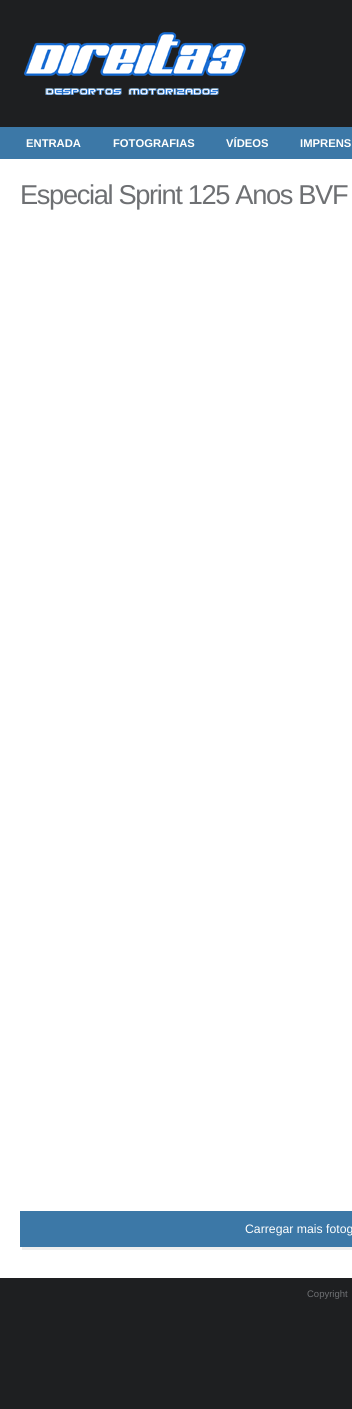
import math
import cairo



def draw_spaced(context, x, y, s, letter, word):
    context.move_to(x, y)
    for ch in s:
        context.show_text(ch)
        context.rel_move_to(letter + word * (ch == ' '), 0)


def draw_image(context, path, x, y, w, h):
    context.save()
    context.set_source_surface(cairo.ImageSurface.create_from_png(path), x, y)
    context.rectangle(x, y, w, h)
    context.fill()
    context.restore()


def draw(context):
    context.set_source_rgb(30 / 255, 31 / 255, 33 / 255)
    context.paint()
    draw_image(context, "images/1.png", 24, 32, 222, 63)
    context.set_source_rgb(60 / 255, 120 / 255, 167 / 255)
    context.rectangle(0, 127, 352, 32)
    context.fill()
    context.set_source_rgb(1, 1, 1)
    context.rectangle(0, 159, 352, 1119)
    context.fill()
    context.set_source_rgb(238 / 255, 238 / 255, 238 / 255)
    context.new_path()
    context.move_to(22, 1247)
    context.line_to(22, 1250)
    context.line_to(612, 1250)
    context.line_to(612, 1214)
    context.line_to(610, 1214)
    context.line_to(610, 1247)
    context.close_path()
    context.fill()
    context.set_source_rgb(60 / 255, 120 / 255, 167 / 255)
    context.rectangle(20, 1211, 332, 36)
    context.fill()
    context.select_font_face("Liberation Sans", cairo.FontSlant.NORMAL, cairo.FontWeight.BOLD)
    context.set_font_size(11.25)
    context.set_source_rgb(1, 1, 254 / 255)
    context.move_to(26, 147)
    context.show_text("ENTRADA")
    context.move_to(113, 147)
    context.show_text("FOTOGRAFIAS")
    context.move_to(226, 147)
    context.show_text("VÍDEOS")
    context.move_to(300, 147)
    context.show_text("IMPRENS")
    context.select_font_face("Liberation Sans")
    context.set_font_size(27.25)
    context.set_source_rgb(110 / 255, 112 / 255, 115 / 255)
    draw_spaced(context, 20, 204, "Especial Sprint 125 Anos BVF", -1.35, 0)
    context.set_font_size(12.25)
    context.set_source_rgb(1, 1, 254 / 255)
    context.move_to(245, 1233)
    context.show_text("Carregar mais fotog")
    context.set_font_size(9.5)
    context.set_source_rgb(110 / 255, 112 / 255, 115 / 255)
    context.move_to(307, 1297)
    context.show_text("Copyright")


surface = cairo.ImageSurface(cairo.Format.RGB24, 352, 1409)
context = cairo.Context(surface)
options = cairo.FontOptions()
options.set_hint_metrics(cairo.HintMetrics.OFF)
options.set_hint_style(cairo.HintStyle.NONE)
context.set_font_options(options)
context.set_miter_limit(4)
draw(context)
surface.write_to_png("out.png")
